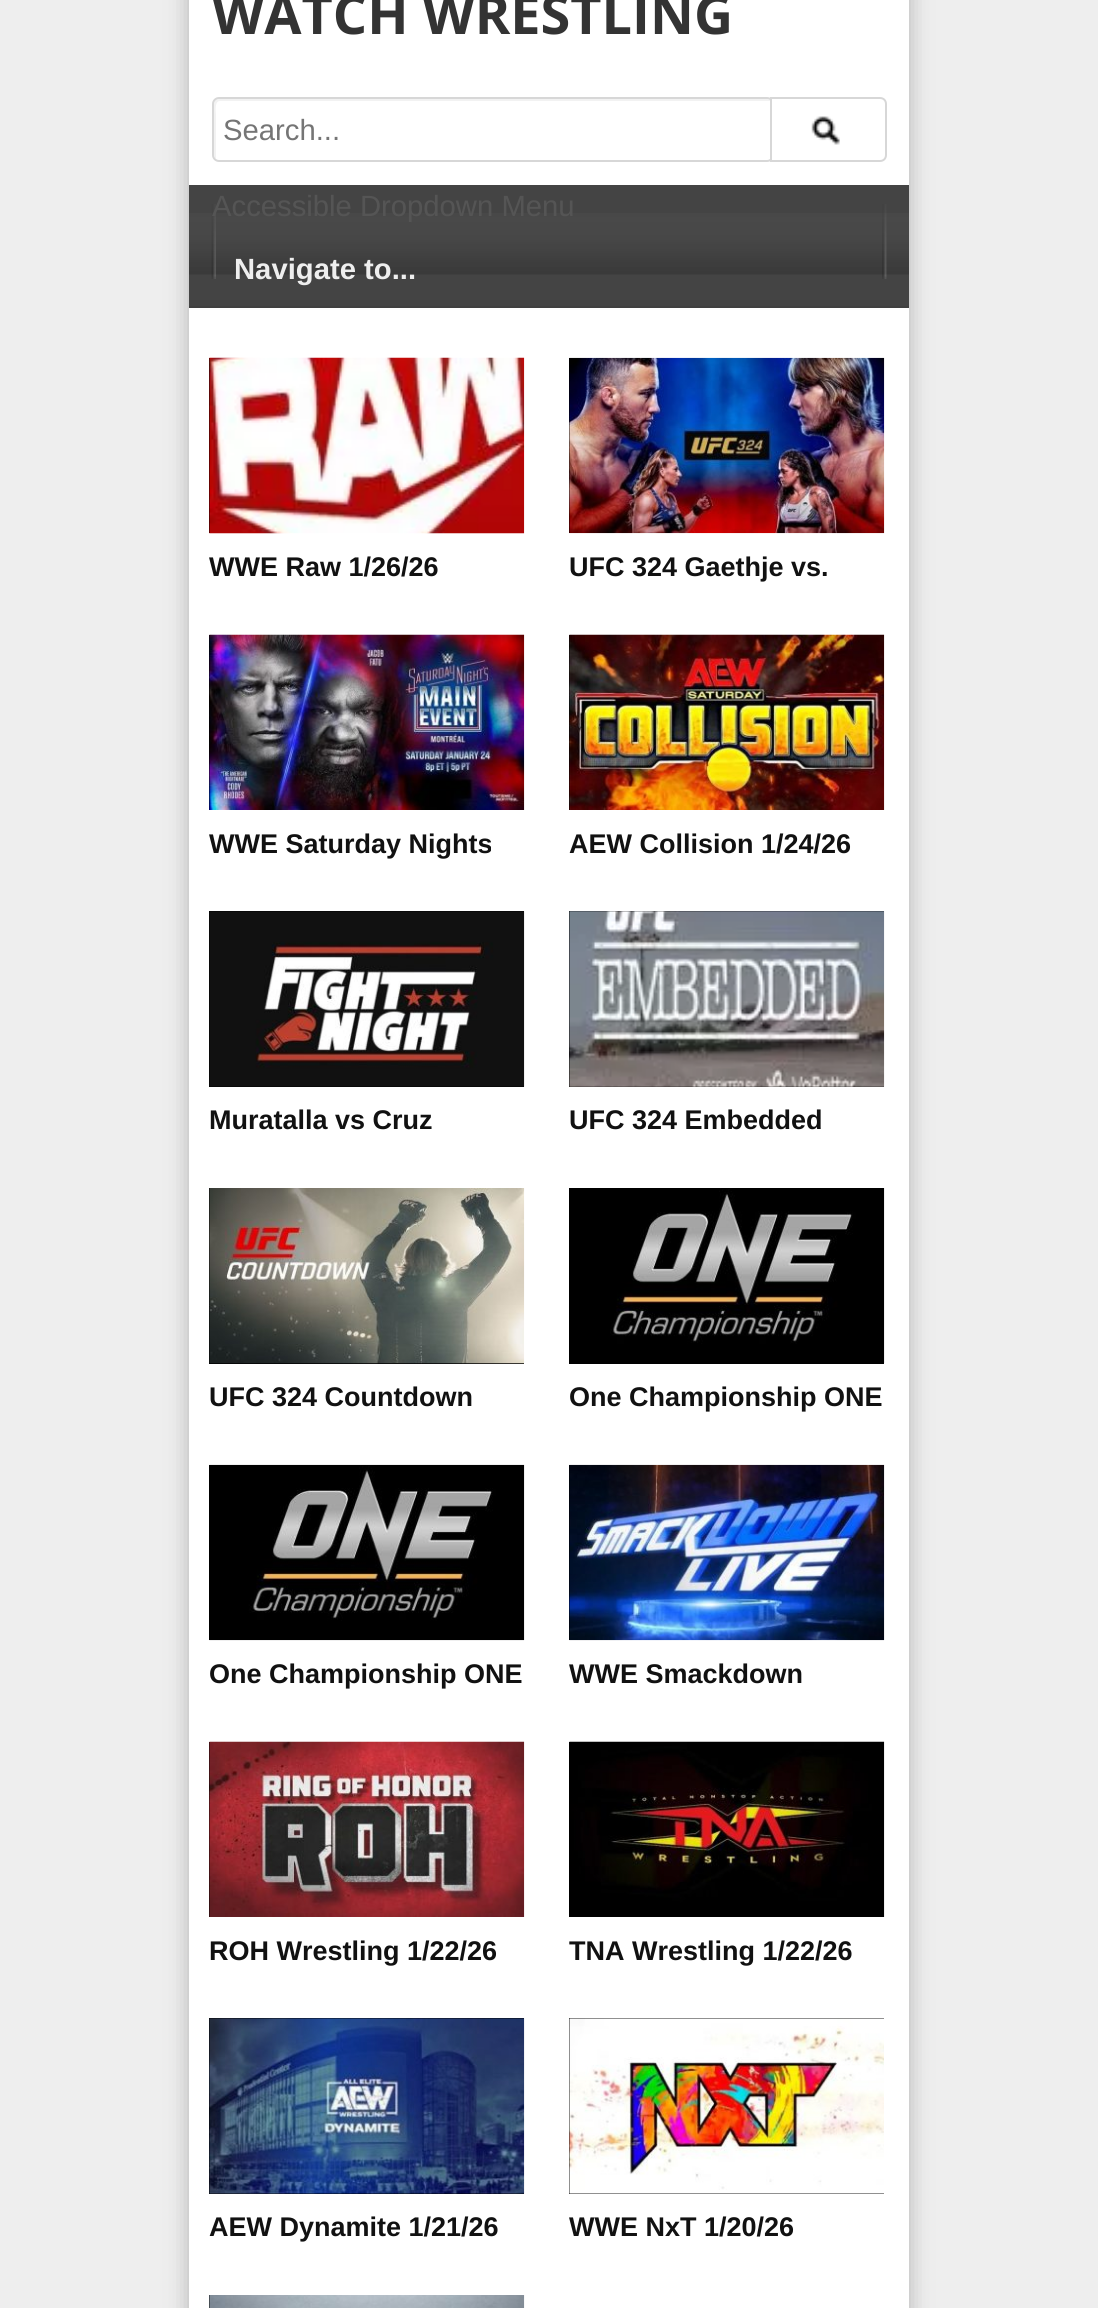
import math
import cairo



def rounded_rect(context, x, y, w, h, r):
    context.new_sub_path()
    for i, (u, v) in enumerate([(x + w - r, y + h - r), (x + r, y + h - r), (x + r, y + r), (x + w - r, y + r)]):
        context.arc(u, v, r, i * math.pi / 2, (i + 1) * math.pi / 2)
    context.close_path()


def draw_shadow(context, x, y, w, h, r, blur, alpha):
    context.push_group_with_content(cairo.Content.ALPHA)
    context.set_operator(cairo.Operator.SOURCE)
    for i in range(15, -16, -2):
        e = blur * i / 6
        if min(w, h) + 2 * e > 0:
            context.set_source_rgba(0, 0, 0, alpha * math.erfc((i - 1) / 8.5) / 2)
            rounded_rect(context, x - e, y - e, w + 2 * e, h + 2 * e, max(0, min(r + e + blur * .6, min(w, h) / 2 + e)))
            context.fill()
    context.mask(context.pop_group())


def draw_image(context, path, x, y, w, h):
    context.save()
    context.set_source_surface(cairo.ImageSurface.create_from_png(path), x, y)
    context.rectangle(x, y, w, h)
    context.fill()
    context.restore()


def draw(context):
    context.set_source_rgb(238 / 255, 238 / 255, 238 / 255)
    context.paint()
    context.set_source_rgb(120 / 255, 120 / 255, 120 / 255)
    draw_shadow(context, 189, -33, 720, 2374, 0, 11, 0.5)
    context.set_source_rgb(1, 1, 1)
    context.rectangle(189, 0, 720, 2308)
    context.fill()
    context.set_source_rgb(242 / 255, 242 / 255, 242 / 255)
    context.new_path()
    context.move_to(220, 101)
    context.line_to(771, 101)
    context.curve_to(770, 100, 769, 99, 767, 99)
    context.line_to(219, 99)
    context.curve_to(216, 99, 214, 101, 214, 104)
    context.line_to(214, 155)
    context.curve_to(214, 157, 215, 158, 216, 159)
    context.line_to(216, 115)
    context.curve_to(216, 113, 214, 101, 220, 101)
    context.close_path()
    context.fill()
    rounded_rect(context, 213, 98, 560, 63, 6)
    context.set_source_rgb(215 / 255, 215 / 255, 215 / 255)
    context.stroke()
    context.set_source_rgb(1, 1, 1)
    context.new_path()
    context.move_to(771, 98)
    context.line_to(880, 98)
    context.curve_to(883.5, 98, 886, 100.5, 886, 104)
    context.line_to(886, 155)
    context.curve_to(886, 158.5, 883.5, 161, 880, 161)
    context.line_to(771, 161)
    context.close_path()
    context.fill_preserve()
    context.set_source_rgb(215 / 255, 215 / 255, 215 / 255)
    context.stroke()
    draw_image(context, "images/1.png", 811, 116, 29, 29)
    context.set_source_rgb(68 / 255, 68 / 255, 68 / 255)
    context.rectangle(189, 185, 720, 121)
    context.fill()
    draw_image(context, "images/2.png", 189, 213, 720, 62)
    context.set_source_rgb(64 / 255, 64 / 255, 64 / 255)
    context.rectangle(189, 306, 720, 2)
    context.fill()
    draw_image(context, "images/3.png", 882, 204, 5, 75)
    draw_image(context, "images/4.png", 211, 204, 5, 75)
    context.set_source_rgb(0, 0, 0)
    context.rectangle(209, 358, 1, 175)
    context.fill()
    draw_image(context, "images/5.png", 209, 357, 316, 177)
    context.rectangle(569, 358, 1, 175)
    context.fill()
    draw_image(context, "images/6.png", 569, 357, 316, 177)
    context.rectangle(209, 635, 1, 175)
    context.fill()
    draw_image(context, "images/7.png", 209, 634, 316, 176)
    context.rectangle(569, 635, 1, 175)
    context.fill()
    draw_image(context, "images/8.png", 569, 634, 316, 176)
    context.rectangle(209, 911, 315, 176)
    context.fill()
    draw_image(context, "images/9.png", 209, 911, 316, 176)
    context.rectangle(569, 911, 315, 176)
    context.fill()
    draw_image(context, "images/10.png", 569, 911, 316, 176)
    context.rectangle(209, 1188, 315, 176)
    context.fill()
    draw_image(context, "images/11.png", 209, 1188, 316, 176)
    context.rectangle(569, 1188, 315, 176)
    context.fill()
    draw_image(context, "images/12.png", 610, 1188, 275, 175)
    context.rectangle(209, 1465, 1, 175)
    context.fill()
    draw_image(context, "images/13.png", 209, 1464, 316, 177)
    context.rectangle(569, 1465, 1, 175)
    context.fill()
    draw_image(context, "images/14.png", 569, 1464, 316, 177)
    context.rectangle(209, 1742, 1, 175)
    context.fill()
    draw_image(context, "images/15.png", 209, 1741, 316, 176)
    context.rectangle(569, 1742, 1, 175)
    context.fill()
    draw_image(context, "images/16.png", 569, 1741, 316, 176)
    context.rectangle(209, 2018, 315, 176)
    context.fill()
    draw_image(context, "images/17.png", 209, 2018, 316, 176)
    context.rectangle(569, 2018, 315, 176)
    context.fill()
    draw_image(context, "images/18.png", 569, 2018, 315, 176)
    context.rectangle(209, 2295, 1, 13)
    context.fill()
    draw_image(context, "images/19.png", 209, 2295, 316, 13)
    context.select_font_face("Open Sans", cairo.FontSlant.NORMAL, cairo.FontWeight.BOLD)
    context.set_font_size(54)
    context.set_source_rgb(51 / 255, 51 / 255, 51 / 255)
    context.move_to(212, 34)
    context.show_text("WATCH WRESTLING")
    context.select_font_face("Liberation Sans")
    context.set_font_size(29.25)
    context.set_source_rgb(117 / 255, 117 / 255, 117 / 255)
    context.move_to(223, 140)
    context.show_text("Search...")
    context.set_source_rgb(85 / 255, 85 / 255, 85 / 255)
    context.move_to(212, 216)
    context.show_text("Accessible Dropdown Menu")
    context.select_font_face("Liberation Sans", cairo.FontSlant.NORMAL, cairo.FontWeight.BOLD)
    context.set_source_rgb(238 / 255, 238 / 255, 238 / 255)
    context.move_to(234, 279)
    context.show_text("Navigate to...")
    context.set_font_size(27)
    context.set_source_rgb(17 / 255, 17 / 255, 17 / 255)
    context.move_to(209, 576)
    context.show_text("WWE Raw 1/26/26")
    context.move_to(569, 576)
    context.show_text("UFC 324 Gaethje vs.")
    context.move_to(209, 853)
    context.show_text("WWE Saturday Nights")
    context.move_to(569, 853)
    context.show_text("AEW Collision 1/24/26")
    context.move_to(209, 1129)
    context.show_text("Muratalla vs Cruz")
    context.move_to(569, 1129)
    context.show_text("UFC 324 Embedded")
    context.move_to(209, 1406)
    context.show_text("UFC 324 Countdown")
    context.move_to(569, 1406)
    context.show_text("One Championship ONE")
    context.move_to(209, 1683)
    context.show_text("One Championship ONE")
    context.move_to(569, 1683)
    context.show_text("WWE Smackdown")
    context.move_to(209, 1960)
    context.show_text("ROH Wrestling 1/22/26")
    context.move_to(569, 1960)
    context.show_text("TNA Wrestling 1/22/26")
    context.move_to(209, 2236)
    context.show_text("AEW Dynamite 1/21/26")
    context.move_to(569, 2236)
    context.show_text("WWE NxT 1/20/26")


surface = cairo.ImageSurface(cairo.Format.RGB24, 1098, 2308)
context = cairo.Context(surface)
options = cairo.FontOptions()
options.set_hint_metrics(cairo.HintMetrics.OFF)
options.set_hint_style(cairo.HintStyle.NONE)
context.set_font_options(options)
context.set_miter_limit(4)
draw(context)
surface.write_to_png("out.png")
